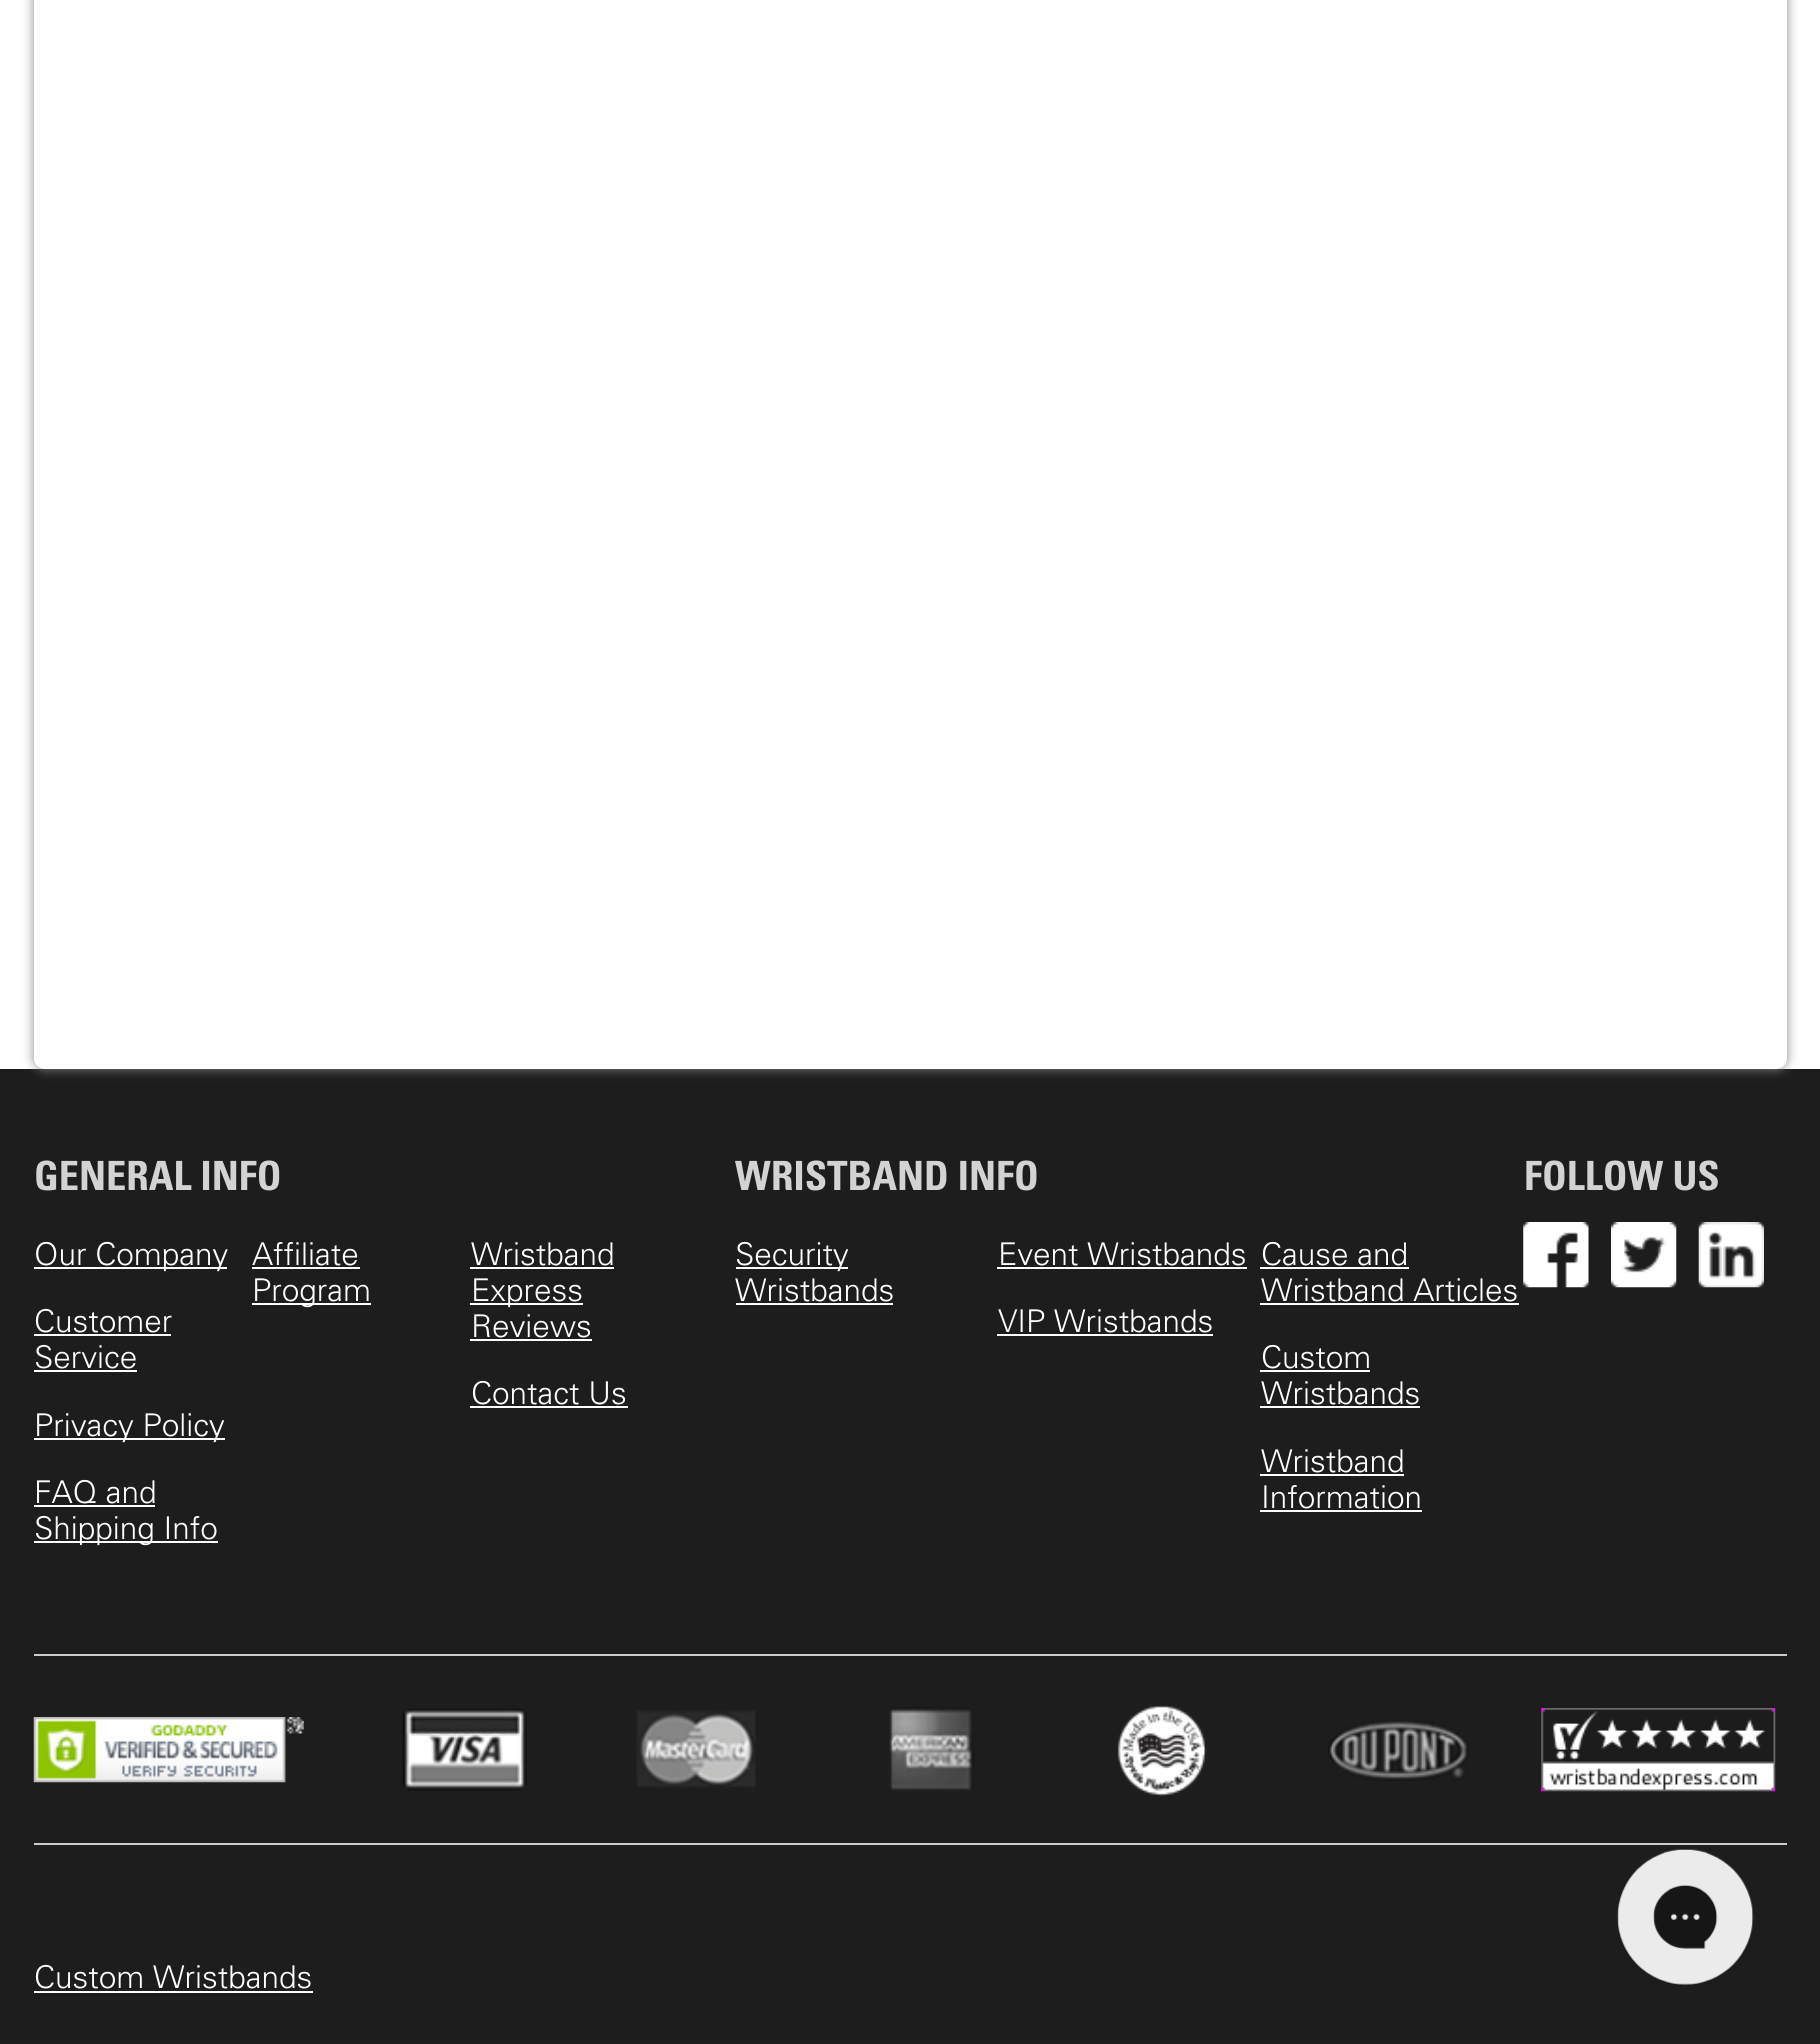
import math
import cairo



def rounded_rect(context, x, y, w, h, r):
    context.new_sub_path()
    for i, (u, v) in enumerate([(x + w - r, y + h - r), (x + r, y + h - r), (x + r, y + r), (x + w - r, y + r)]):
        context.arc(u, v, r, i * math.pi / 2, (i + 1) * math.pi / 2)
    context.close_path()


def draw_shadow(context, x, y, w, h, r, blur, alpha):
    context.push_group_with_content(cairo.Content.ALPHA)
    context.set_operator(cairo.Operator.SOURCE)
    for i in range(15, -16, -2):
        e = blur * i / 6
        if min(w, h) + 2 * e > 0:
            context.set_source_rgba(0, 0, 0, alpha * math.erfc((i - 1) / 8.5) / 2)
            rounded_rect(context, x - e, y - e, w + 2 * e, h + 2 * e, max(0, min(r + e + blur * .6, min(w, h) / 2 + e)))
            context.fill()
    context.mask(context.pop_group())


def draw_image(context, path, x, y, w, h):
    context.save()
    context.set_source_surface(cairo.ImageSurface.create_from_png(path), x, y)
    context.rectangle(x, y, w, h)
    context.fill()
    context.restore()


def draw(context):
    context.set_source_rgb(1, 1, 1)
    context.paint()
    context.set_source_rgb(29 / 255, 29 / 255, 29 / 255)
    context.rectangle(0, 1069, 1820, 975)
    context.fill()
    context.set_source_rgb(136 / 255, 136 / 255, 136 / 255)
    draw_shadow(context, 34, -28, 1753, 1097, 11, 5.5, 1)
    context.set_source_rgb(1, 1, 1)
    rounded_rect(context, 34, -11, 1753, 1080, 11)
    context.fill()
    context.rectangle(34, 1267, 193, 2)
    context.fill()
    context.rectangle(34, 1334, 137, 2)
    context.fill()
    context.rectangle(34, 1370, 103, 2)
    context.fill()
    context.rectangle(34, 1438, 191, 2)
    context.fill()
    context.rectangle(34, 1505, 121, 2)
    context.fill()
    context.rectangle(34, 1541, 184, 2)
    context.fill()
    context.rectangle(252, 1267, 108, 2)
    context.fill()
    context.rectangle(252, 1303, 119, 2)
    context.fill()
    context.rectangle(470, 1267, 144, 2)
    context.fill()
    context.rectangle(470, 1303, 113, 2)
    context.fill()
    context.rectangle(470, 1339, 122, 2)
    context.fill()
    context.rectangle(470, 1406, 158, 2)
    context.fill()
    context.rectangle(736, 1267, 112, 2)
    context.fill()
    context.rectangle(736, 1303, 157, 2)
    context.fill()
    context.rectangle(997, 1267, 250, 2)
    context.fill()
    context.rectangle(997, 1334, 216, 2)
    context.fill()
    context.rectangle(1260, 1267, 149, 2)
    context.fill()
    context.rectangle(1260, 1303, 259, 2)
    context.fill()
    context.rectangle(1260, 1370, 110, 2)
    context.fill()
    context.rectangle(1260, 1406, 160, 2)
    context.fill()
    context.rectangle(1260, 1474, 144, 2)
    context.fill()
    context.rectangle(1260, 1510, 162, 2)
    context.fill()
    draw_image(context, "images/1.png", 1523, 1222, 66, 66)
    draw_image(context, "images/2.png", 1611, 1222, 66, 66)
    draw_image(context, "images/3.png", 1698, 1222, 66, 66)
    context.set_source_rgb(204 / 255, 204 / 255, 204 / 255)
    context.rectangle(34, 1654, 1753, 2)
    context.fill()
    draw_image(context, "images/4.png", 33, 1717, 271, 66)
    draw_image(context, "images/5.png", 402, 1708, 125, 83)
    draw_image(context, "images/6.png", 636, 1710, 120, 78)
    draw_image(context, "images/7.png", 889, 1707, 86, 84)
    draw_image(context, "images/8.png", 1117, 1705, 90, 92)
    draw_image(context, "images/9.png", 1328, 1721, 141, 60)
    draw_image(context, "images/10.png", 1541, 1708, 235, 84)
    context.rectangle(34, 1843, 1753, 2)
    context.fill()
    context.set_source_rgb(1, 1, 1)
    context.rectangle(34, 1991, 279, 2)
    context.fill()
    draw_image(context, "images/11.png", 1617, 1849, 137, 136)
    context.select_font_face("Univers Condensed", cairo.FontSlant.NORMAL, cairo.FontWeight.BOLD)
    context.set_font_size(40.5)
    context.set_source_rgb(211 / 255, 211 / 255, 211 / 255)
    context.move_to(34, 1190)
    context.show_text("GENERAL INFO")
    context.select_font_face("Univers Light")
    context.set_font_size(31.5)
    context.set_source_rgb(1, 1, 1)
    context.move_to(34, 1265)
    context.show_text("Our Company")
    context.move_to(34, 1332)
    context.show_text("Customer")
    context.move_to(34, 1368)
    context.show_text("Service")
    context.move_to(34, 1436)
    context.show_text("Privacy Policy")
    context.move_to(34, 1503)
    context.show_text("FAQ and")
    context.move_to(34, 1539)
    context.show_text("Shipping Info")
    context.move_to(252, 1265)
    context.show_text("Affiliate")
    context.move_to(252, 1301)
    context.show_text("Program")
    context.move_to(471, 1265)
    context.show_text("Wristband")
    context.move_to(471, 1301)
    context.show_text("Express")
    context.move_to(471, 1337)
    context.show_text("Reviews")
    context.move_to(471, 1404)
    context.show_text("Contact Us")
    context.select_font_face("Univers Condensed", cairo.FontSlant.NORMAL, cairo.FontWeight.BOLD)
    context.set_font_size(40.5)
    context.set_source_rgb(211 / 255, 211 / 255, 211 / 255)
    context.move_to(735, 1190)
    context.show_text("WRISTBAND INFO")
    context.select_font_face("Univers Light")
    context.set_font_size(31.5)
    context.set_source_rgb(1, 1, 1)
    context.move_to(735, 1265)
    context.show_text("Security")
    context.move_to(735, 1301)
    context.show_text("Wristbands")
    context.move_to(998, 1265)
    context.show_text("Event Wristbands")
    context.move_to(998, 1332)
    context.show_text("VIP Wristbands")
    context.move_to(1261, 1265)
    context.show_text("Cause and")
    context.move_to(1261, 1301)
    context.show_text("Wristband Articles")
    context.move_to(1261, 1368)
    context.show_text("Custom")
    context.move_to(1261, 1404)
    context.show_text("Wristbands")
    context.move_to(1261, 1472)
    context.show_text("Wristband")
    context.move_to(1261, 1508)
    context.show_text("Information")
    context.select_font_face("Univers Condensed", cairo.FontSlant.NORMAL, cairo.FontWeight.BOLD)
    context.set_font_size(40.5)
    context.set_source_rgb(211 / 255, 211 / 255, 211 / 255)
    context.move_to(1524, 1190)
    context.show_text("FOLLOW US")
    context.select_font_face("Univers Light")
    context.set_font_size(31.5)
    context.set_source_rgb(1, 1, 1)
    context.move_to(34, 1988)
    context.show_text("Custom Wristbands")


surface = cairo.ImageSurface(cairo.Format.RGB24, 1820, 2044)
context = cairo.Context(surface)
options = cairo.FontOptions()
options.set_hint_metrics(cairo.HintMetrics.OFF)
options.set_hint_style(cairo.HintStyle.NONE)
context.set_font_options(options)
context.set_miter_limit(4)
draw(context)
surface.write_to_png("out.png")
